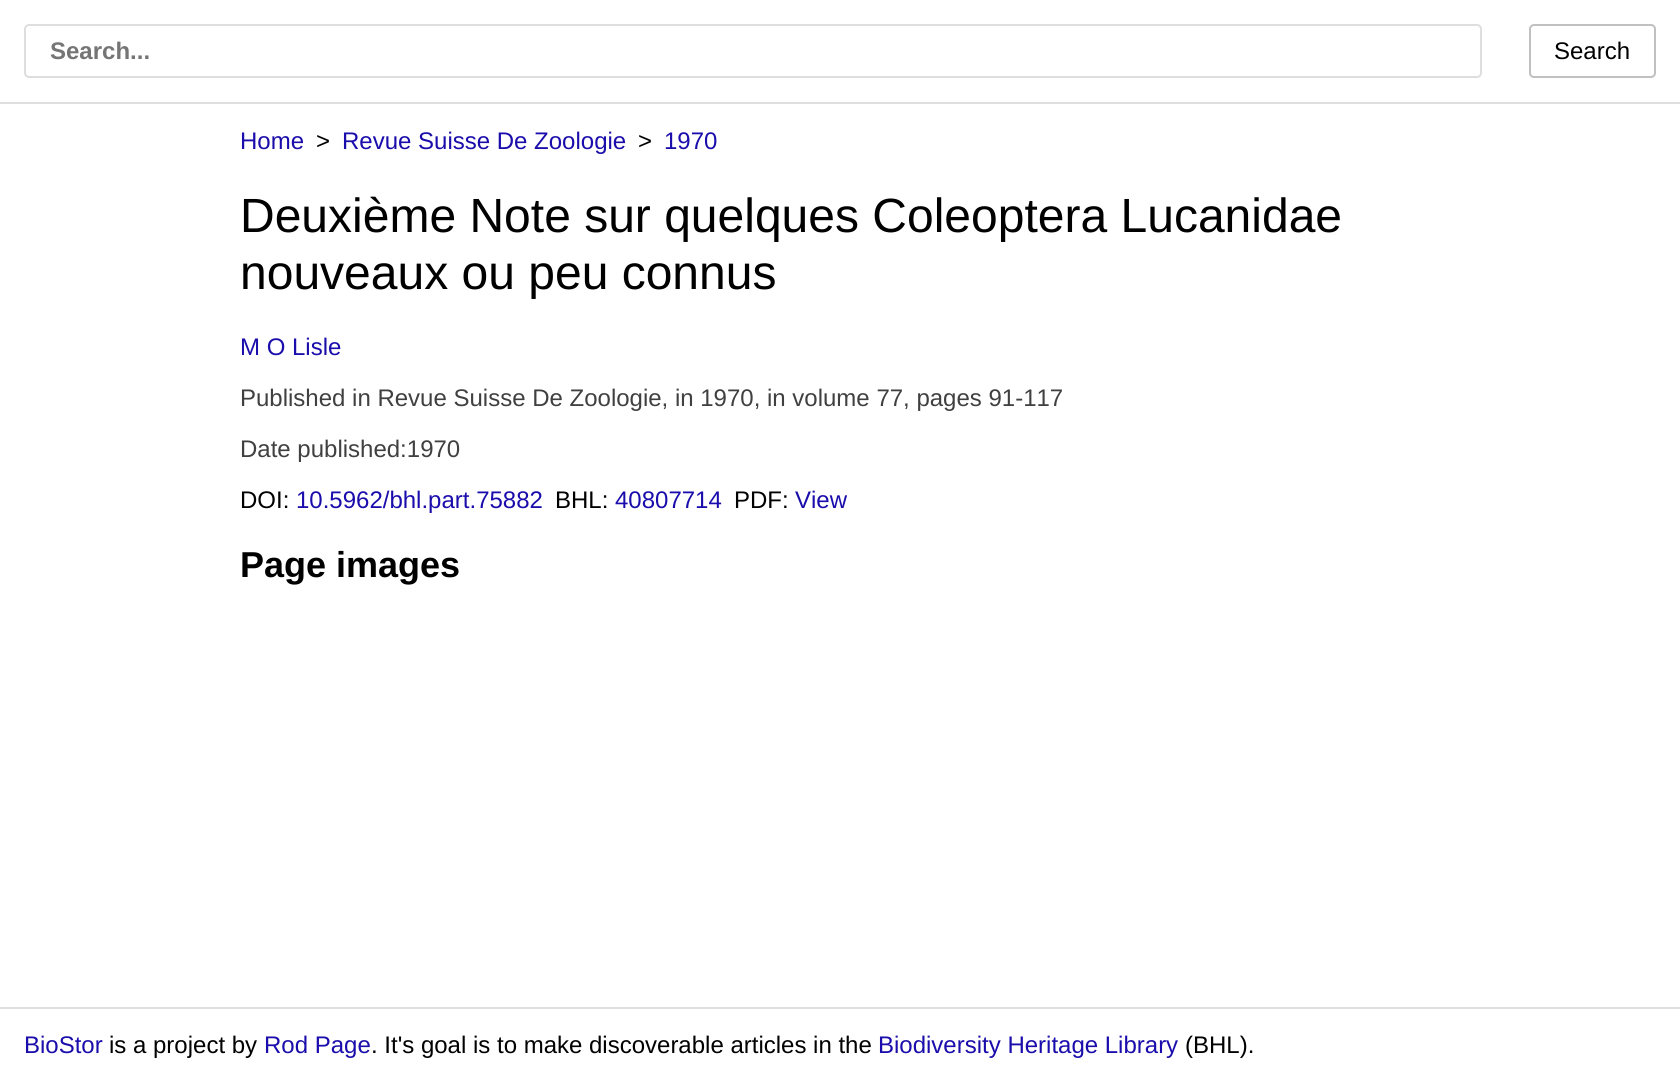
import math
import cairo



def rounded_rect(context, x, y, w, h, r):
    context.new_sub_path()
    for i, (u, v) in enumerate([(x + w - r, y + h - r), (x + r, y + h - r), (x + r, y + r), (x + w - r, y + r)]):
        context.arc(u, v, r, i * math.pi / 2, (i + 1) * math.pi / 2)
    context.close_path()


def draw(context):
    context.set_source_rgb(1, 1, 1)
    context.paint()
    context.set_source_rgb(222 / 255, 222 / 255, 222 / 255)
    context.rectangle(0, 102, 1680, 2)
    context.fill()
    rounded_rect(context, 25, 25, 1456, 52, 4)
    context.stroke()
    rounded_rect(context, 1530, 25, 125, 52, 4)
    context.set_source_rgb(192 / 255, 192 / 255, 192 / 255)
    context.stroke()
    context.set_source_rgb(222 / 255, 222 / 255, 222 / 255)
    context.rectangle(0, 1007, 1680, 2)
    context.fill()
    context.select_font_face("Liberation Sans", cairo.FontSlant.NORMAL, cairo.FontWeight.BOLD)
    context.set_font_size(24)
    context.set_source_rgb(117 / 255, 117 / 255, 117 / 255)
    context.move_to(50, 59)
    context.show_text("Search...")
    context.select_font_face("Liberation Sans")
    context.set_source_rgb(0, 0, 0)
    context.move_to(1554, 59)
    context.show_text("Search")
    context.set_source_rgb(26 / 255, 13 / 255, 171 / 255)
    context.move_to(240, 149)
    context.show_text("Home")
    context.set_source_rgb(0, 0, 0)
    context.move_to(316, 149)
    context.show_text(">")
    context.set_source_rgb(26 / 255, 13 / 255, 171 / 255)
    context.move_to(342, 149)
    context.show_text("Revue Suisse De Zoologie")
    context.set_source_rgb(0, 0, 0)
    context.move_to(638, 149)
    context.show_text(">")
    context.set_source_rgb(26 / 255, 13 / 255, 171 / 255)
    context.move_to(664, 149)
    context.show_text("1970")
    context.set_font_size(48)
    context.set_source_rgb(0, 0, 0)
    context.move_to(240, 232)
    context.show_text("Deuxième Note sur quelques Coleoptera Lucanidae")
    context.move_to(240, 289)
    context.show_text("nouveaux ou peu connus")
    context.set_font_size(24)
    context.set_source_rgb(26 / 255, 13 / 255, 171 / 255)
    context.move_to(240, 355)
    context.show_text("M O Lisle")
    context.set_source_rgb(64 / 255, 64 / 255, 64 / 255)
    context.move_to(240, 406)
    context.show_text("Published in Revue Suisse De Zoologie, in 1970, in volume 77, pages 91-117")
    context.move_to(240, 457)
    context.show_text("Date published:1970")
    context.set_source_rgb(0, 0, 0)
    context.move_to(240, 508)
    context.show_text("DOI:")
    context.set_source_rgb(26 / 255, 13 / 255, 171 / 255)
    context.move_to(296, 508)
    context.show_text("10.5962/bhl.part.75882")
    context.set_source_rgb(0, 0, 0)
    context.move_to(555, 508)
    context.show_text("BHL:")
    context.set_source_rgb(26 / 255, 13 / 255, 171 / 255)
    context.move_to(615, 508)
    context.show_text("40807714")
    context.set_source_rgb(0, 0, 0)
    context.move_to(734, 508)
    context.show_text("PDF:")
    context.set_source_rgb(26 / 255, 13 / 255, 171 / 255)
    context.move_to(795, 508)
    context.show_text("View")
    context.select_font_face("Liberation Sans", cairo.FontSlant.NORMAL, cairo.FontWeight.BOLD)
    context.set_font_size(36)
    context.set_source_rgb(0, 0, 0)
    context.move_to(240, 577)
    context.show_text("Page images")
    context.select_font_face("Liberation Sans")
    context.set_font_size(24)
    context.set_source_rgb(26 / 255, 13 / 255, 171 / 255)
    context.move_to(24, 1053)
    context.show_text("BioStor")
    context.set_source_rgb(0, 0, 0)
    context.move_to(109, 1053)
    context.show_text("is a project by")
    context.set_source_rgb(26 / 255, 13 / 255, 171 / 255)
    context.move_to(264, 1053)
    context.show_text("Rod Page")
    context.set_source_rgb(0, 0, 0)
    context.move_to(371, 1053)
    context.show_text(". It's goal is to make discoverable articles in the")
    context.set_source_rgb(26 / 255, 13 / 255, 171 / 255)
    context.move_to(878, 1053)
    context.show_text("Biodiversity Heritage Library")
    context.set_source_rgb(0, 0, 0)
    context.move_to(1185, 1053)
    context.show_text("(BHL).")


surface = cairo.ImageSurface(cairo.Format.RGB24, 1680, 1083)
context = cairo.Context(surface)
options = cairo.FontOptions()
options.set_hint_metrics(cairo.HintMetrics.OFF)
options.set_hint_style(cairo.HintStyle.NONE)
context.set_font_options(options)
context.set_miter_limit(4)
draw(context)
surface.write_to_png("out.png")
